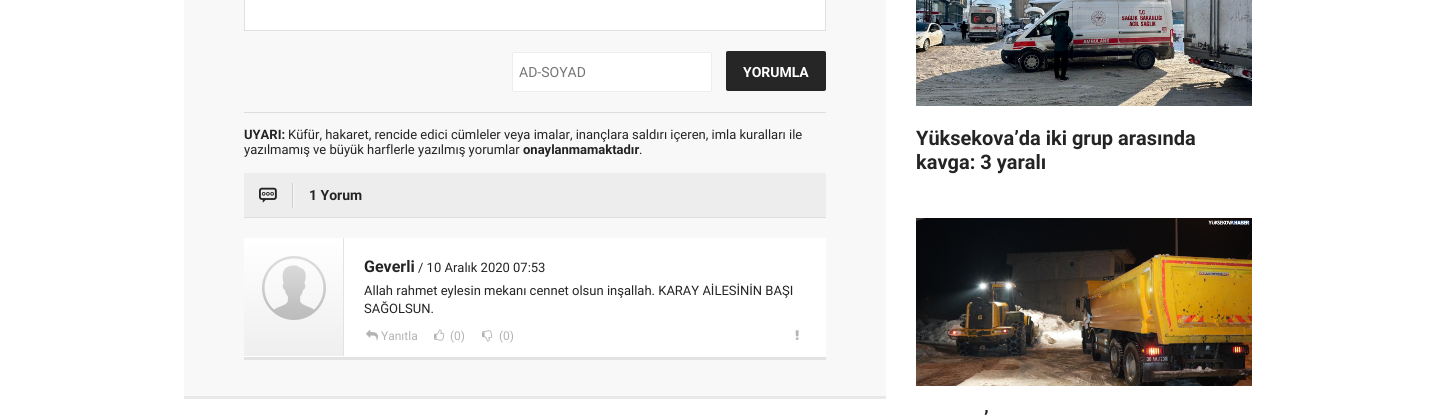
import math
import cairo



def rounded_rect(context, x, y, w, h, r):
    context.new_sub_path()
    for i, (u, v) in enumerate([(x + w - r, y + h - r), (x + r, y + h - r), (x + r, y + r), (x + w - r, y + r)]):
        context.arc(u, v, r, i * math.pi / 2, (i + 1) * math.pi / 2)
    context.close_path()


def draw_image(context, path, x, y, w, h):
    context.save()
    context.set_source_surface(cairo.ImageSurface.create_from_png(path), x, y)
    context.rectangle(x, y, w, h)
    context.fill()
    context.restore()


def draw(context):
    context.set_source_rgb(1, 1, 1)
    context.paint()
    context.set_source_rgb(248 / 255, 248 / 255, 248 / 255)
    context.rectangle(184, 0, 702, 396)
    context.fill()
    context.set_source_rgb(233 / 255, 233 / 255, 233 / 255)
    context.rectangle(184, 396, 702, 3)
    context.fill()
    context.set_source_rgb(1, 1, 1)
    context.rectangle(244.5, -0.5, 581, 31)
    context.fill_preserve()
    context.set_source_rgb(224 / 255, 224 / 255, 224 / 255)
    context.set_line_width(1)
    context.stroke()
    context.set_source_rgb(1, 1, 1)
    rounded_rect(context, 512.5, 52.5, 199, 39, 1.5)
    context.fill_preserve()
    context.set_source_rgb(237 / 255, 237 / 255, 237 / 255)
    context.stroke()
    context.set_source_rgb(38 / 255, 38 / 255, 38 / 255)
    rounded_rect(context, 726, 51, 100, 40, 2)
    context.fill()
    context.set_source_rgb(221 / 255, 221 / 255, 221 / 255)
    context.rectangle(244, 112, 582, 1)
    context.fill()
    context.set_source_rgb(237 / 255, 237 / 255, 237 / 255)
    context.rectangle(244, 173, 582, 44)
    context.fill()
    context.set_source_rgb(221 / 255, 221 / 255, 221 / 255)
    context.rectangle(244, 217, 582, 1)
    context.fill()
    context.set_source_rgb(207 / 255, 207 / 255, 207 / 255)
    context.rectangle(292, 183, 1, 25)
    context.fill()
    draw_image(context, "images/1.png", 259, 187, 18, 16)
    context.set_source_rgb(246 / 255, 246 / 255, 246 / 255)
    context.rectangle(293, 183, 1, 25)
    context.fill()
    context.set_source_rgb(1, 1, 1)
    context.rectangle(344, 238, 482, 119)
    context.fill()
    context.set_source_rgb(227 / 255, 227 / 255, 227 / 255)
    context.rectangle(244, 357, 582, 3)
    context.fill()
    gradient = cairo.LinearGradient(294, 238, 294, 356)
    gradient.add_color_stop_rgba(0, 1, 1, 1, 1)
    gradient.add_color_stop_rgba(1, 239 / 255, 239 / 255, 239 / 255, 1)
    context.set_source(gradient)
    context.rectangle(244, 238, 99, 118)
    context.fill()
    context.set_source_rgb(227 / 255, 227 / 255, 227 / 255)
    context.rectangle(343, 238, 1, 119)
    context.fill()
    context.set_source_rgb(1, 1, 1)
    context.rectangle(244, 356, 100, 1)
    context.fill()
    draw_image(context, "images/2.png", 262, 256, 64, 64)
    draw_image(context, "images/3.png", 366, 330, 12, 11)
    draw_image(context, "images/4.png", 434, 329, 11, 12)
    draw_image(context, "images/5.png", 482, 330, 11, 12)
    draw_image(context, "images/6.png", 795, 330, 4, 10)
    draw_image(context, "images/7.png", 916, 0, 336, 106)
    draw_image(context, "images/8.png", 916, 218, 336, 168)
    context.select_font_face("Roboto")
    context.set_font_size(14)
    context.set_source_rgb(117 / 255, 117 / 255, 117 / 255)
    context.move_to(519, 77)
    context.show_text("AD-SOYAD")
    context.select_font_face("Roboto", cairo.FontSlant.NORMAL, cairo.FontWeight.BOLD)
    context.set_source_rgb(1, 1, 1)
    context.move_to(743, 77)
    context.show_text("YORUMLA")
    context.set_font_size(13)
    context.set_source_rgb(36 / 255, 36 / 255, 36 / 255)
    context.move_to(244, 139)
    context.show_text("UYARI:")
    context.select_font_face("Roboto")
    context.move_to(288, 139)
    context.show_text("Küfür, hakaret, rencide edici cümleler veya imalar, inançlara saldırı içeren, imla kuralları ile")
    context.move_to(244, 154)
    context.show_text("yazılmamış ve büyük harflerle yazılmış yorumlar")
    context.select_font_face("Roboto", cairo.FontSlant.NORMAL, cairo.FontWeight.BOLD)
    context.move_to(523, 154)
    context.show_text("onaylanmamaktadır")
    context.select_font_face("Roboto")
    context.move_to(639, 154)
    context.show_text(".")
    context.select_font_face("Roboto", cairo.FontSlant.NORMAL, cairo.FontWeight.BOLD)
    context.set_font_size(14)
    context.move_to(309, 200)
    context.show_text("1 Yorum")
    context.set_font_size(16)
    context.move_to(364, 272)
    context.show_text("Geverli")
    context.select_font_face("Roboto")
    context.set_font_size(13)
    context.move_to(418, 272)
    context.show_text("/ 10 Aralık 2020 07:53")
    context.move_to(364, 295)
    context.show_text("Allah rahmet eylesin mekanı cennet olsun inşallah. KARAY AİLESİNİN BAŞI")
    context.move_to(364, 313)
    context.show_text("SAĞOLSUN.")
    context.set_font_size(12)
    context.set_source_rgb(179 / 255, 179 / 255, 179 / 255)
    context.move_to(381, 340)
    context.show_text("Yanıtla")
    context.move_to(450, 340)
    context.show_text("(0)")
    context.move_to(499, 340)
    context.show_text("(0)")
    context.select_font_face("Roboto", cairo.FontSlant.NORMAL, cairo.FontWeight.BOLD)
    context.set_font_size(20)
    context.set_source_rgb(36 / 255, 36 / 255, 36 / 255)
    context.move_to(916, 145)
    context.show_text("Yüksekova’da iki grup arasında")
    context.move_to(916, 169)
    context.show_text("kavga: 3 yaralı")
    context.move_to(984, 425)
    context.show_text("’")


surface = cairo.ImageSurface(cairo.Format.RGB24, 1436, 416)
context = cairo.Context(surface)
options = cairo.FontOptions()
options.set_hint_metrics(cairo.HintMetrics.OFF)
options.set_hint_style(cairo.HintStyle.NONE)
context.set_font_options(options)
context.set_miter_limit(4)
draw(context)
surface.write_to_png("out.png")
